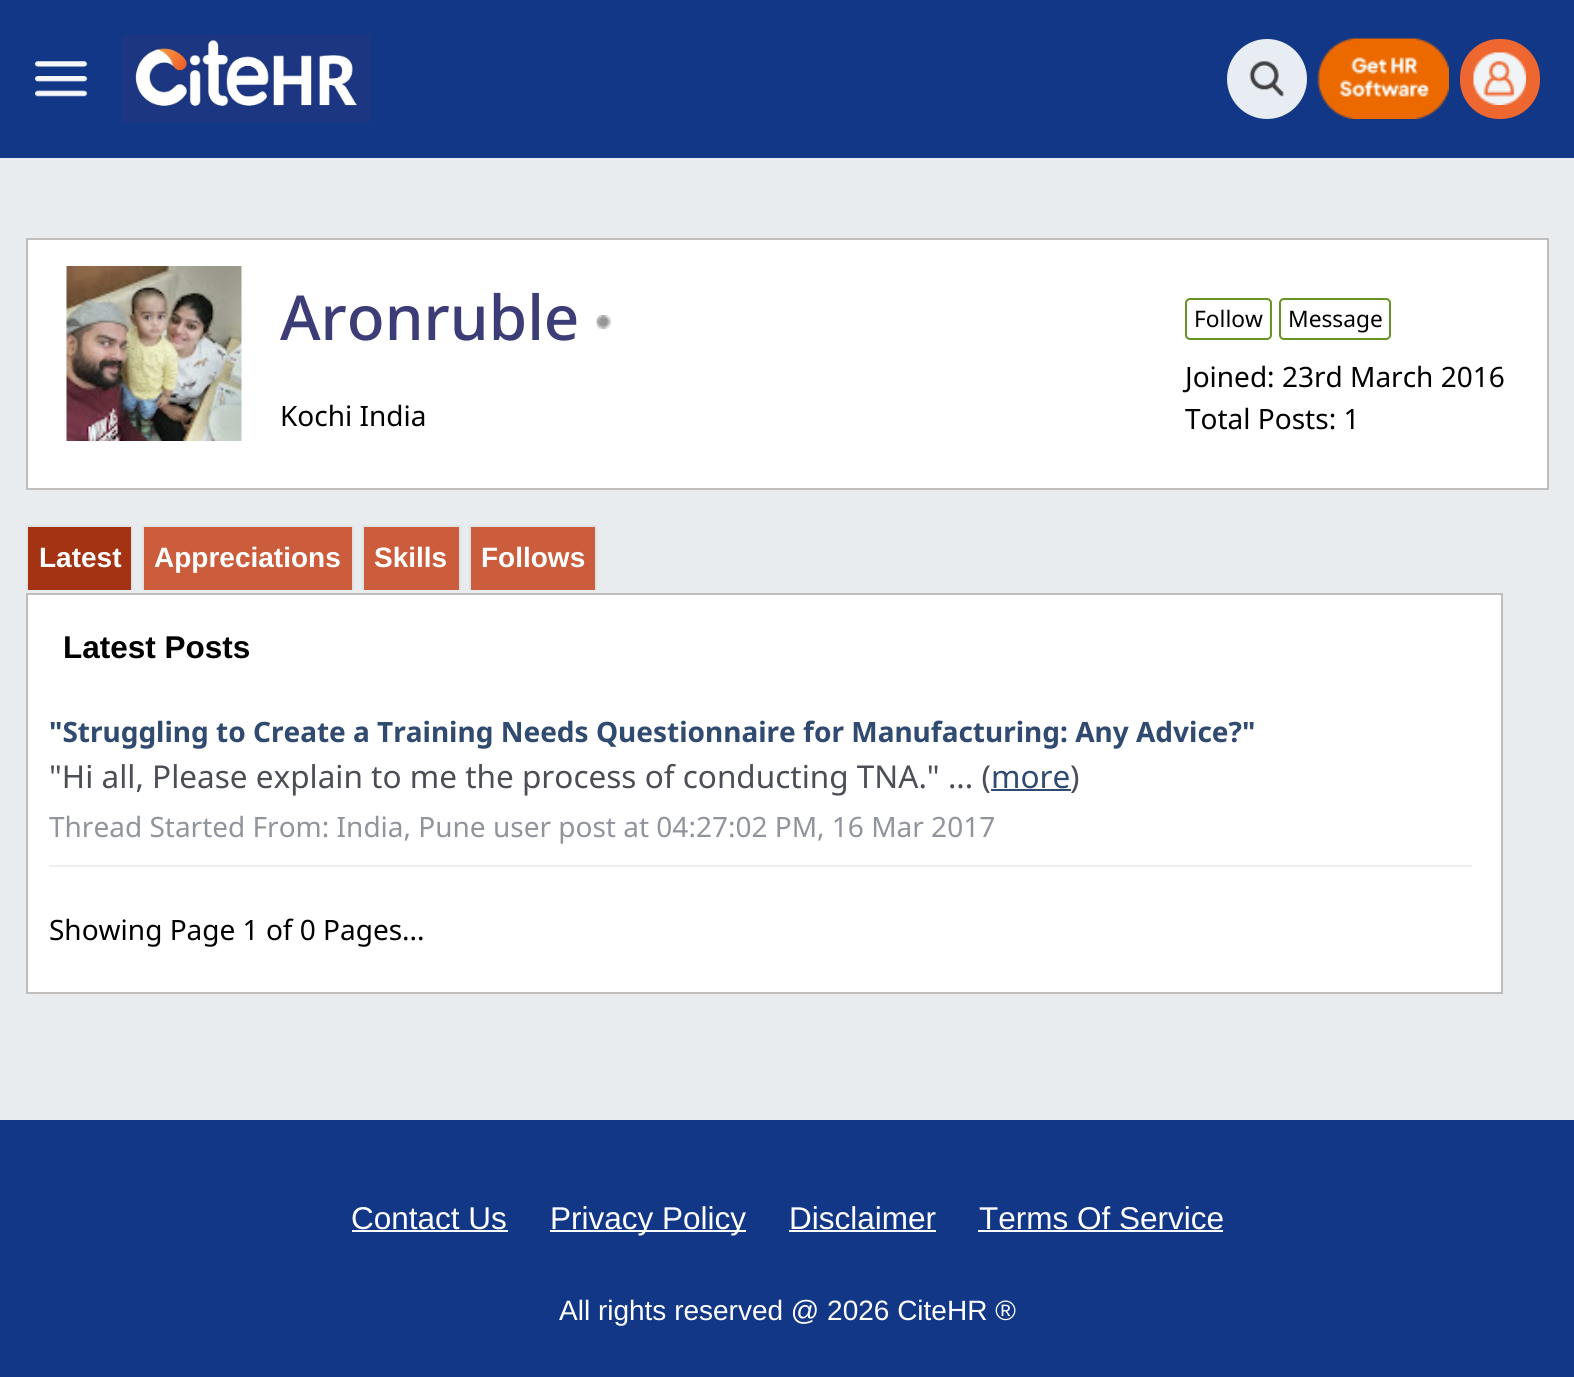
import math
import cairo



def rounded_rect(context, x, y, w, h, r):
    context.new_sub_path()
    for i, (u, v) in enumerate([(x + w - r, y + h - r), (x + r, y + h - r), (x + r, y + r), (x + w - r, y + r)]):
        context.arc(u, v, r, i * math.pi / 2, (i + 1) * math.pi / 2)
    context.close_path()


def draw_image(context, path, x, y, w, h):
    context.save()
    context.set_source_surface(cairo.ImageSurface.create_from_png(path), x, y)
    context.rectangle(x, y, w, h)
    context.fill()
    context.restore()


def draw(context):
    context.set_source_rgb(233 / 255, 236 / 255, 238 / 255)
    context.paint()
    context.set_source_rgb(18 / 255, 55 / 255, 135 / 255)
    context.rectangle(0, 0, 1574, 158)
    context.fill()
    draw_image(context, "images/1.png", 35, 61, 53, 36)
    draw_image(context, "images/2.png", 122, 35, 249, 88)
    context.set_source_rgb(231 / 255, 237 / 255, 242 / 255)
    context.arc(1267, 79, 40, 0, 2 * math.pi)
    context.fill()
    draw_image(context, "images/3.png", 1249, 61, 35, 36)
    draw_image(context, "images/4.png", 1317, 38, 132, 81)
    context.set_source_rgb(239 / 255, 103 / 255, 48 / 255)
    rounded_rect(context, 1460, 39, 80, 80, 39)
    context.fill()
    draw_image(context, "images/5.png", 1473, 52, 53, 53)
    context.set_source_rgb(1, 1, 1)
    context.rectangle(27, 239, 1521, 250)
    context.fill_preserve()
    context.set_source_rgb(190 / 255, 190 / 255, 190 / 255)
    context.stroke()
    draw_image(context, "images/6.png", 66, 266, 176, 175)
    draw_image(context, "images/7.png", 596, 315, 15, 14)
    rounded_rect(context, 1186, 299, 85, 40, 4)
    context.set_source_rgb(103 / 255, 148 / 255, 34 / 255)
    context.stroke()
    rounded_rect(context, 1280, 299, 110, 40, 4)
    context.stroke()
    context.set_source_rgb(164 / 255, 51 / 255, 19 / 255)
    context.rectangle(28, 527, 103, 63)
    context.fill()
    context.set_source_rgb(225 / 255, 226 / 255, 227 / 255)
    context.rectangle(26, 525, 107, 2)
    context.fill()
    context.rectangle(131, 525, 2, 65)
    context.fill()
    context.rectangle(26, 525, 2, 65)
    context.fill()
    context.set_source_rgb(204 / 255, 93 / 255, 60 / 255)
    context.rectangle(144, 527, 208, 63)
    context.fill()
    context.set_source_rgb(225 / 255, 226 / 255, 227 / 255)
    context.rectangle(142, 525, 212, 2)
    context.fill()
    context.rectangle(352, 525, 2, 65)
    context.fill()
    context.rectangle(142, 525, 2, 65)
    context.fill()
    context.set_source_rgb(204 / 255, 93 / 255, 60 / 255)
    context.rectangle(364, 527, 95, 63)
    context.fill()
    context.set_source_rgb(225 / 255, 226 / 255, 227 / 255)
    context.rectangle(362, 525, 98, 2)
    context.fill()
    context.rectangle(459, 525, 2, 65)
    context.fill()
    context.rectangle(362, 525, 2, 65)
    context.fill()
    context.set_source_rgb(204 / 255, 93 / 255, 60 / 255)
    context.rectangle(471, 527, 124, 63)
    context.fill()
    context.set_source_rgb(225 / 255, 226 / 255, 227 / 255)
    context.rectangle(469, 525, 128, 2)
    context.fill()
    context.rectangle(595, 525, 2, 65)
    context.fill()
    context.rectangle(469, 525, 2, 65)
    context.fill()
    context.set_source_rgb(1, 1, 1)
    context.rectangle(27, 594, 1475, 399)
    context.fill_preserve()
    context.set_source_rgb(190 / 255, 190 / 255, 190 / 255)
    context.stroke()
    context.set_source_rgb(239 / 255, 239 / 255, 239 / 255)
    context.rectangle(49, 865, 1423, 2)
    context.fill()
    context.set_source_rgb(48 / 255, 74 / 255, 112 / 255)
    context.rectangle(991, 789, 80, 2)
    context.fill()
    context.set_source_rgb(18 / 255, 55 / 255, 135 / 255)
    context.rectangle(0, 1120, 1574, 257)
    context.fill()
    context.set_source_rgb(1, 1, 1)
    context.rectangle(352, 1230, 156, 2)
    context.fill()
    context.rectangle(550, 1230, 196, 2)
    context.fill()
    context.rectangle(789, 1230, 147, 2)
    context.fill()
    context.rectangle(978, 1230, 245, 2)
    context.fill()
    context.select_font_face("Noto Sans Medium")
    context.set_font_size(62)
    context.set_source_rgb(60 / 255, 60 / 255, 119 / 255)
    context.move_to(280, 340)
    context.show_text("Aronruble")
    context.select_font_face("Noto Sans")
    context.set_font_size(28)
    context.set_source_rgb(0, 0, 0)
    context.move_to(280, 426)
    context.show_text("Kochi India")
    context.set_font_size(22.75)
    context.move_to(1194, 327)
    context.show_text("Follow")
    context.move_to(1288, 327)
    context.show_text("Message")
    context.set_font_size(28)
    context.move_to(1185, 387)
    context.show_text("Joined: 23rd March 2016")
    context.move_to(1185, 429)
    context.show_text("Total Posts: 1")
    context.select_font_face("Liberation Sans", cairo.FontSlant.NORMAL, cairo.FontWeight.BOLD)
    context.set_source_rgb(1, 1, 1)
    context.move_to(39, 567)
    context.show_text("Latest")
    context.move_to(154, 567)
    context.show_text("Appreciations")
    context.move_to(374, 567)
    context.show_text("Skills")
    context.move_to(481, 567)
    context.show_text("Follows")
    context.set_font_size(31.5)
    context.set_source_rgb(0, 0, 0)
    context.move_to(63, 658)
    context.show_text("Latest Posts")
    context.select_font_face("Noto Sans", cairo.FontSlant.NORMAL, cairo.FontWeight.BOLD)
    context.set_font_size(28)
    context.set_source_rgb(48 / 255, 74 / 255, 112 / 255)
    context.move_to(49, 742)
    context.show_text("\"Struggling to Create a Training Needs Questionnaire for Manufacturing: Any Advice?\"")
    context.select_font_face("Noto Sans")
    context.set_font_size(31.5)
    context.set_source_rgb(75 / 255, 79 / 255, 85 / 255)
    context.move_to(49, 788)
    context.show_text("\"Hi all, Please explain to me the process of conducting TNA.\" ... (")
    context.set_source_rgb(48 / 255, 74 / 255, 112 / 255)
    context.move_to(991, 788)
    context.show_text("more")
    context.set_source_rgb(75 / 255, 79 / 255, 85 / 255)
    context.move_to(1070, 788)
    context.show_text(")")
    context.set_font_size(28)
    context.set_source_rgb(144 / 255, 148 / 255, 155 / 255)
    context.move_to(49, 837)
    context.show_text("Thread Started From: India, Pune user post at 04:27:02 PM, 16 Mar 2017")
    context.set_source_rgb(0, 0, 0)
    context.move_to(49, 940)
    context.show_text("Showing Page 1 of 0 Pages...")
    context.select_font_face("Liberation Sans")
    context.set_font_size(31.5)
    context.set_source_rgb(1, 1, 1)
    context.move_to(351, 1229)
    context.show_text("Contact Us")
    context.move_to(550, 1229)
    context.show_text("Privacy Policy")
    context.move_to(789, 1229)
    context.show_text("Disclaimer")
    context.move_to(979, 1229)
    context.show_text("Terms Of Service")
    context.set_font_size(28)
    context.move_to(559, 1320)
    context.show_text("All rights reserved @ 2026 CiteHR ®")


surface = cairo.ImageSurface(cairo.Format.RGB24, 1574, 1377)
context = cairo.Context(surface)
options = cairo.FontOptions()
options.set_hint_metrics(cairo.HintMetrics.OFF)
options.set_hint_style(cairo.HintStyle.NONE)
context.set_font_options(options)
context.set_miter_limit(4)
draw(context)
surface.write_to_png("out.png")
